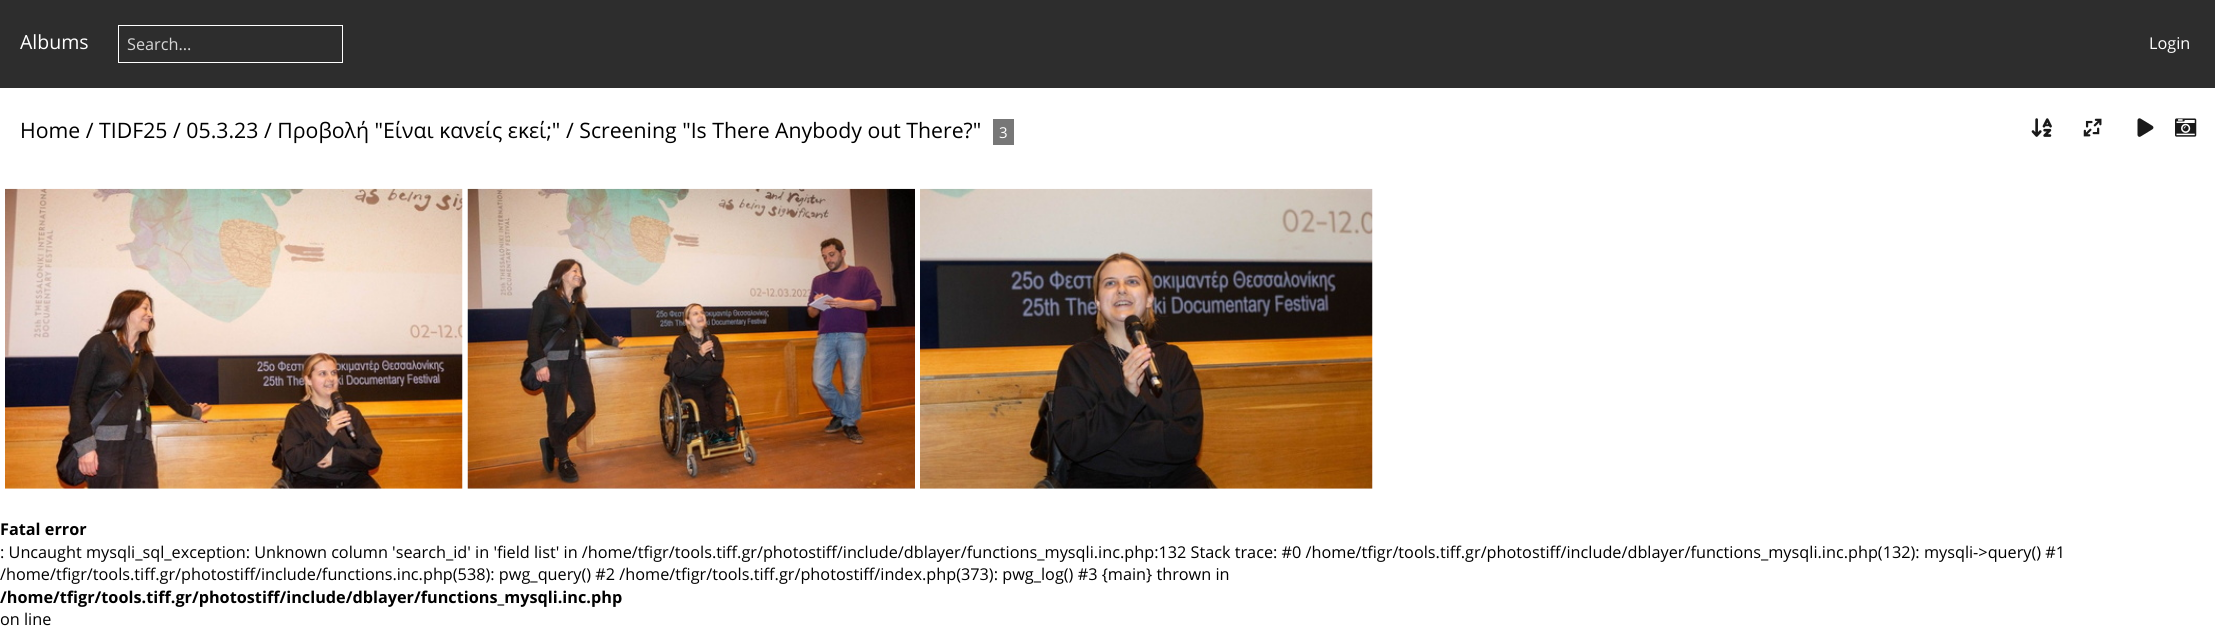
import math
import cairo



def draw_image(context, path, x, y, w, h):
    context.save()
    context.set_source_surface(cairo.ImageSurface.create_from_png(path), x, y)
    context.rectangle(x, y, w, h)
    context.fill()
    context.restore()


def draw(context):
    context.set_source_rgb(1, 1, 1)
    context.paint()
    context.set_source_rgb(45 / 255, 45 / 255, 45 / 255)
    context.rectangle(0, 0, 2215, 88)
    context.fill()
    context.rectangle(118.5, 25.5, 224, 37)
    context.set_source_rgb(1, 1, 1)
    context.set_line_width(1)
    context.stroke()
    context.set_source_rgb(119 / 255, 119 / 255, 119 / 255)
    context.rectangle(993, 119, 21, 26)
    context.fill()
    draw_image(context, "images/1.png", 2031, 118, 21, 19)
    draw_image(context, "images/2.png", 2083, 118, 19, 19)
    draw_image(context, "images/3.png", 2137, 118, 17, 19)
    draw_image(context, "images/4.png", 2175, 118, 22, 19)
    draw_image(context, "images/5.png", 5, 188, 458, 301)
    draw_image(context, "images/6.png", 467, 188, 448, 301)
    draw_image(context, "images/7.png", 920, 188, 453, 301)
    context.select_font_face("Open Sans")
    context.set_font_size(19.5)
    context.set_source_rgb(1, 1, 1)
    context.move_to(20, 49)
    context.show_text("Albums")
    context.set_font_size(16.25)
    context.set_source_rgb(214 / 255, 214 / 255, 214 / 255)
    context.move_to(127, 50)
    context.show_text("Search...")
    context.set_source_rgb(1, 1, 1)
    context.move_to(2149, 49)
    context.show_text("Login")
    context.set_font_size(21.25)
    context.set_source_rgb(0, 0, 0)
    context.move_to(20, 138)
    context.show_text("Home / TIDF25 / 05.3.23 / Προβολή \"Είναι κανείς εκεί;\" / Screening \"Is There Anybody out There?\"")
    context.set_font_size(15)
    context.set_source_rgb(1, 1, 1)
    context.move_to(999, 138)
    context.show_text("3")
    context.select_font_face("Open Sans", cairo.FontSlant.NORMAL, cairo.FontWeight.BOLD)
    context.set_font_size(16.25)
    context.set_source_rgb(0, 0, 0)
    context.move_to(0, 535)
    context.show_text("Fatal error")
    context.select_font_face("Open Sans")
    context.move_to(0, 558)
    context.show_text(": Uncaught mysqli_sql_exception: Unknown column 'search_id' in 'field list' in /home/tfigr/tools.tiff.gr/photostiff/include/dblayer/functions_mysqli.inc.php:132 Stack trace: #0 /home/tfigr/tools.tiff.gr/photostiff/include/dblayer/functions_mysqli.inc.php(132): mysqli->query() #1")
    context.move_to(0, 580)
    context.show_text("/home/tfigr/tools.tiff.gr/photostiff/include/functions.inc.php(538): pwg_query() #2 /home/tfigr/tools.tiff.gr/photostiff/index.php(373): pwg_log() #3 {main} thrown in")
    context.select_font_face("Open Sans", cairo.FontSlant.NORMAL, cairo.FontWeight.BOLD)
    context.move_to(0, 603)
    context.show_text("/home/tfigr/tools.tiff.gr/photostiff/include/dblayer/functions_mysqli.inc.php")
    context.select_font_face("Open Sans")
    context.move_to(0, 625)
    context.show_text("on line")


surface = cairo.ImageSurface(cairo.Format.RGB24, 2215, 629)
context = cairo.Context(surface)
options = cairo.FontOptions()
options.set_hint_metrics(cairo.HintMetrics.OFF)
options.set_hint_style(cairo.HintStyle.NONE)
context.set_font_options(options)
context.set_miter_limit(4)
draw(context)
surface.write_to_png("out.png")
